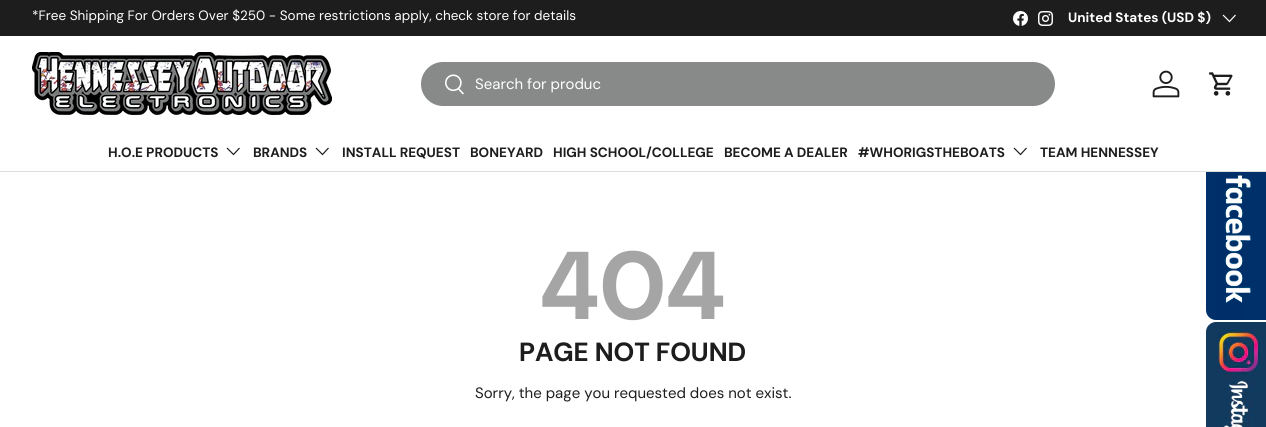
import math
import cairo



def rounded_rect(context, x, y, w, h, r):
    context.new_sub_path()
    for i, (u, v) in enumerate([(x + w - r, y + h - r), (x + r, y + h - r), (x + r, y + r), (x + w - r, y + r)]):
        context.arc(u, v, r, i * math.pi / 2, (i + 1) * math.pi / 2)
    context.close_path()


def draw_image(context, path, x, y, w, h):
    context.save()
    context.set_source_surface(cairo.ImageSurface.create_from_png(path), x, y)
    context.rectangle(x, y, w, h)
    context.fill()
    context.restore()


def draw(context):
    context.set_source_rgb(1, 1, 1)
    context.paint()
    context.set_source_rgb(29 / 255, 29 / 255, 29 / 255)
    context.rectangle(0, 0, 1266, 36)
    context.fill()
    draw_image(context, "images/1.png", 1013, 11, 15, 15)
    draw_image(context, "images/2.png", 1038, 11, 15, 15)
    context.new_path()
    context.move_to(1235.5, 15)
    context.line_to(1229.5, 21.5)
    context.line_to(1223, 15)
    context.set_source_rgb(1, 1, 1)
    context.set_line_width(1.2)
    context.stroke()
    context.set_source_rgb(221 / 255, 221 / 255, 221 / 255)
    context.rectangle(0, 171, 1266, 1)
    context.fill()
    draw_image(context, "images/3.png", 32, 52, 300, 63)
    context.set_source_rgb(136 / 255, 137 / 255, 137 / 255)
    rounded_rect(context, 421, 62, 634, 44, 22)
    context.fill()
    draw_image(context, "images/4.png", 445, 74, 19, 21)
    draw_image(context, "images/5.png", 1152, 70, 28, 28)
    draw_image(context, "images/6.png", 1209, 72, 24, 24)
    context.new_path()
    context.move_to(239.5, 148)
    context.line_to(233.5, 154.5)
    context.line_to(227, 148)
    context.set_source_rgb(29 / 255, 29 / 255, 29 / 255)
    context.stroke()
    context.new_path()
    context.move_to(328.5, 148)
    context.line_to(322.5, 154.5)
    context.line_to(316, 148)
    context.stroke()
    context.new_path()
    context.move_to(1026.5, 148)
    context.line_to(1020.5, 154.5)
    context.line_to(1014, 148)
    context.stroke()
    draw_image(context, "images/7.png", 1206, 172, 60, 148)
    context.set_source_rgb(18 / 255, 58 / 255, 94 / 255)
    context.new_path()
    context.move_to(1226, 322)
    context.line_to(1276, 322)
    context.line_to(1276, 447)
    context.line_to(1226, 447)
    context.curve_to(1215, 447, 1206, 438, 1206, 427)
    context.line_to(1206, 342)
    context.curve_to(1206, 331, 1215, 322, 1226, 322)
    context.close_path()
    context.fill()
    draw_image(context, "images/8.png", 1206, 322, 56, 105)
    context.select_font_face("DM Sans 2")
    context.set_font_size(13.5)
    context.set_source_rgb(1, 1, 1)
    context.move_to(32, 20)
    context.show_text("*Free Shipping For Orders Over $250 - Some restrictions apply, check store for details")
    context.select_font_face("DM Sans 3", cairo.FontSlant.NORMAL, cairo.FontWeight.BOLD)
    context.move_to(1068, 22)
    context.show_text("United States (USD $)")
    context.select_font_face("DM Sans")
    context.set_font_size(15)
    context.move_to(475, 89)
    context.show_text("Search for produc")
    context.select_font_face("DM Sans 3", cairo.FontSlant.NORMAL, cairo.FontWeight.BOLD)
    context.set_font_size(13.5)
    context.set_source_rgb(29 / 255, 29 / 255, 29 / 255)
    context.move_to(108, 157)
    context.show_text("H.O.E PRODUCTS")
    context.move_to(253, 157)
    context.show_text("BRANDS")
    context.move_to(342, 157)
    context.show_text("INSTALL REQUEST")
    context.move_to(470, 157)
    context.show_text("BONEYARD")
    context.move_to(553, 157)
    context.show_text("HIGH SCHOOL/COLLEGE")
    context.move_to(724, 157)
    context.show_text("BECOME A DEALER")
    context.move_to(858, 157)
    context.show_text("#WHORIGSTHEBOATS")
    context.move_to(1040, 157)
    context.show_text("TEAM HENNESSEY")
    context.select_font_face("DM Sans", cairo.FontSlant.NORMAL, cairo.FontWeight.BOLD)
    context.set_font_size(96)
    context.set_source_rgb(165 / 255, 165 / 255, 165 / 255)
    context.move_to(540, 319)
    context.show_text("404")
    context.select_font_face("DM Sans 2", cairo.FontSlant.NORMAL, cairo.FontWeight.BOLD)
    context.set_font_size(26.25)
    context.set_source_rgb(29 / 255, 29 / 255, 29 / 255)
    context.move_to(519, 361)
    context.show_text("PAGE NOT FOUND")
    context.select_font_face("DM Sans")
    context.set_font_size(15)
    context.move_to(475, 398)
    context.show_text("Sorry, the page you requested does not exist.")


surface = cairo.ImageSurface(cairo.Format.RGB24, 1266, 427)
context = cairo.Context(surface)
options = cairo.FontOptions()
options.set_hint_metrics(cairo.HintMetrics.OFF)
options.set_hint_style(cairo.HintStyle.NONE)
context.set_font_options(options)
context.set_miter_limit(4)
draw(context)
surface.write_to_png("out.png")
